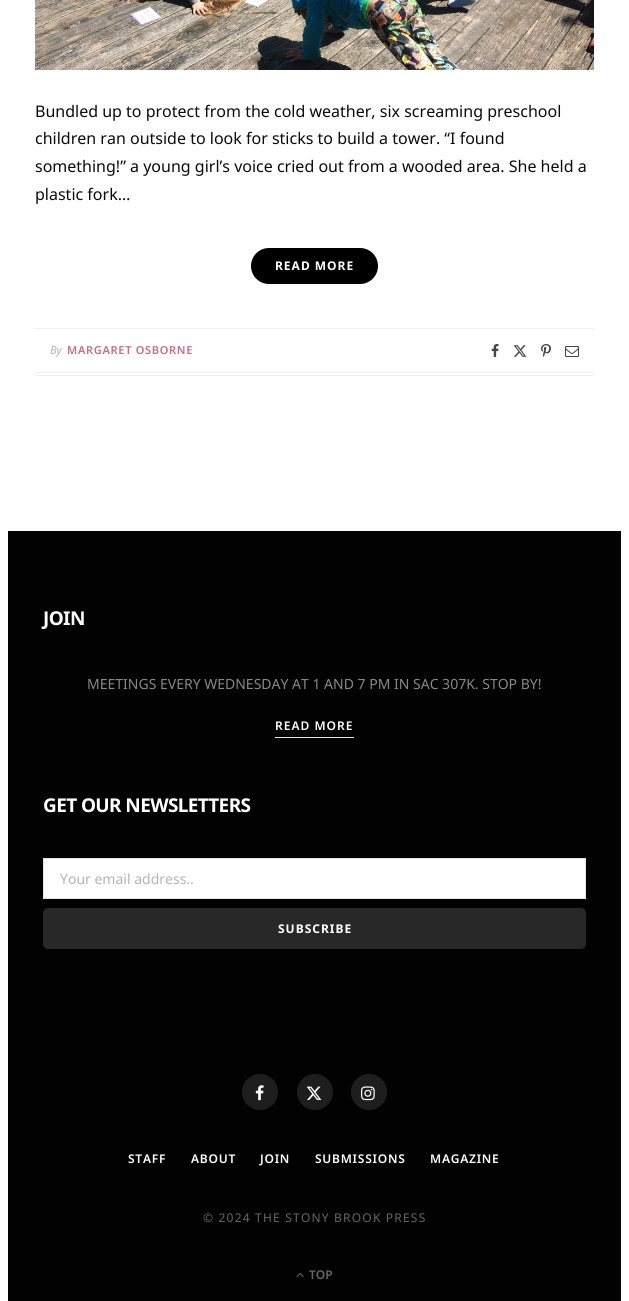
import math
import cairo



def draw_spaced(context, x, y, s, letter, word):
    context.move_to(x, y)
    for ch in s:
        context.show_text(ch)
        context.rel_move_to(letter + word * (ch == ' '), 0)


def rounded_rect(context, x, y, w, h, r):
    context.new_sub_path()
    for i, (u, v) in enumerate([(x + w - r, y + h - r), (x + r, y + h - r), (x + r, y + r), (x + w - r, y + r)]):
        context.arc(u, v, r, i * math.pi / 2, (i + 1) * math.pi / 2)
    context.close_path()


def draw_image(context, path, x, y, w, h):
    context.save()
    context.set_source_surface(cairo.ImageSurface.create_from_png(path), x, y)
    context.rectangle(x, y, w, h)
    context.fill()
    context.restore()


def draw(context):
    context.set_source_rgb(1, 1, 1)
    context.paint()
    draw_image(context, "images/1.png", 35, 0, 559, 70)
    context.set_source_rgb(0, 0, 0)
    rounded_rect(context, 251, 248, 127, 36, 18)
    context.fill()
    context.set_source_rgb(239 / 255, 239 / 255, 239 / 255)
    context.rectangle(35, 375, 559, 1)
    context.fill()
    context.rectangle(35, 328, 559, 1)
    context.fill()
    context.rectangle(35, 372, 559, 1)
    context.fill()
    draw_image(context, "images/2.png", 491, 344, 8, 13)
    draw_image(context, "images/3.png", 513, 345, 14, 12)
    draw_image(context, "images/4.png", 541, 344, 10, 13)
    draw_image(context, "images/5.png", 565, 346, 14, 11)
    context.set_source_rgb(2 / 255, 2 / 255, 2 / 255)
    context.rectangle(8, 531, 613, 770)
    context.fill()
    context.set_source_rgb(235 / 255, 235 / 255, 235 / 255)
    context.rectangle(275, 737, 79, 1)
    context.fill()
    context.set_source_rgb(1, 1, 1)
    context.rectangle(43.5, 858.5, 542, 40)
    context.fill_preserve()
    context.set_source_rgb(229 / 255, 229 / 255, 229 / 255)
    context.set_line_width(1)
    context.stroke()
    context.set_source_rgb(40 / 255, 40 / 255, 40 / 255)
    rounded_rect(context, 43, 908, 543, 41, 5)
    context.fill()
    context.set_source_rgb(30 / 255, 30 / 255, 30 / 255)
    context.arc(260, 1092, 18, 0, 2 * math.pi)
    context.fill()
    draw_image(context, "images/6.png", 255, 1085, 9, 16)
    context.arc(315, 1092, 18, 0, 2 * math.pi)
    context.fill()
    draw_image(context, "images/7.png", 306, 1086, 16, 14)
    context.arc(369, 1092, 18, 0, 2 * math.pi)
    context.fill()
    draw_image(context, "images/8.png", 361, 1086, 14, 15)
    draw_image(context, "images/9.png", 296, 1272, 8, 5)
    context.select_font_face("Noto Sans")
    context.set_font_size(16)
    context.set_source_rgb(10 / 255, 10 / 255, 10 / 255)
    context.move_to(35, 117)
    context.show_text("Bundled up to protect from the cold weather, six screaming preschool")
    context.move_to(35, 144)
    context.show_text("children ran outside to look for sticks to build a tower. “I found")
    context.move_to(35, 172)
    context.show_text("something!” a young girl’s voice cried out from a wooded area. She held a")
    context.move_to(35, 200)
    context.show_text("plastic fork…")
    context.select_font_face("Noto Sans", cairo.FontSlant.NORMAL, cairo.FontWeight.BOLD)
    context.set_font_size(12)
    context.set_source_rgb(1, 1, 1)
    draw_spaced(context, 275, 270, "READ MORE", 1, 0)
    context.select_font_face("Noto Sans", cairo.FontSlant.ITALIC)
    context.set_font_size(11)
    context.set_source_rgb(180 / 255, 180 / 255, 180 / 255)
    context.move_to(50, 354)
    context.show_text("By")
    context.select_font_face("Noto Sans SemiBold")
    context.set_source_rgb(201 / 255, 108 / 255, 133 / 255)
    draw_spaced(context, 67, 354, "MARGARET OSBORNE", 0.7, 0)
    context.select_font_face("Noto Sans", cairo.FontSlant.NORMAL, cairo.FontWeight.BOLD)
    context.set_font_size(19)
    context.set_source_rgb(1, 1, 1)
    draw_spaced(context, 43, 625, "JOIN", -0.6, 0)
    context.select_font_face("Noto Sans")
    context.set_font_size(14)
    context.set_source_rgb(136 / 255, 136 / 255, 136 / 255)
    context.move_to(87, 689)
    context.show_text("MEETINGS EVERY WEDNESDAY AT 1 AND 7 PM IN SAC 307K. STOP BY!")
    context.select_font_face("Noto Sans SemiBold")
    context.set_font_size(12)
    context.set_source_rgb(1, 1, 1)
    draw_spaced(context, 275, 730, "READ MORE", 1, 0)
    context.select_font_face("Noto Sans", cairo.FontSlant.NORMAL, cairo.FontWeight.BOLD)
    context.set_font_size(19)
    draw_spaced(context, 43, 812, "GET OUR NEWSLETTERS", -0.6, 0)
    context.select_font_face("Noto Sans")
    context.set_font_size(14)
    context.set_source_rgb(180 / 255, 180 / 255, 180 / 255)
    context.move_to(60, 884)
    context.show_text("Your email address..")
    context.select_font_face("Noto Sans", cairo.FontSlant.NORMAL, cairo.FontWeight.BOLD)
    context.set_font_size(12)
    context.set_source_rgb(1, 1, 1)
    draw_spaced(context, 278, 933, "SUBSCRIBE", 1, 0)
    context.select_font_face("Noto Sans SemiBold")
    draw_spaced(context, 128, 1163, "STAFF", 0.75, 0)
    draw_spaced(context, 191, 1163, "ABOUT", 0.75, 0)
    draw_spaced(context, 260, 1163, "JOIN", 0.75, 0)
    draw_spaced(context, 315, 1163, "SUBMISSIONS", 0.75, 0)
    draw_spaced(context, 430, 1163, "MAGAZINE", 0.75, 0)
    context.select_font_face("Noto Sans")
    context.set_source_rgb(102 / 255, 102 / 255, 102 / 255)
    draw_spaced(context, 203, 1222, "© 2024 THE STONY BROOK PRESS", 1.2, 0)
    context.select_font_face("Noto Sans SemiBold")
    context.move_to(309, 1279)
    context.show_text("TOP")


surface = cairo.ImageSurface(cairo.Format.RGB24, 629, 1301)
context = cairo.Context(surface)
options = cairo.FontOptions()
options.set_hint_metrics(cairo.HintMetrics.OFF)
options.set_hint_style(cairo.HintStyle.NONE)
context.set_font_options(options)
context.set_miter_limit(4)
draw(context)
surface.write_to_png("out.png")
